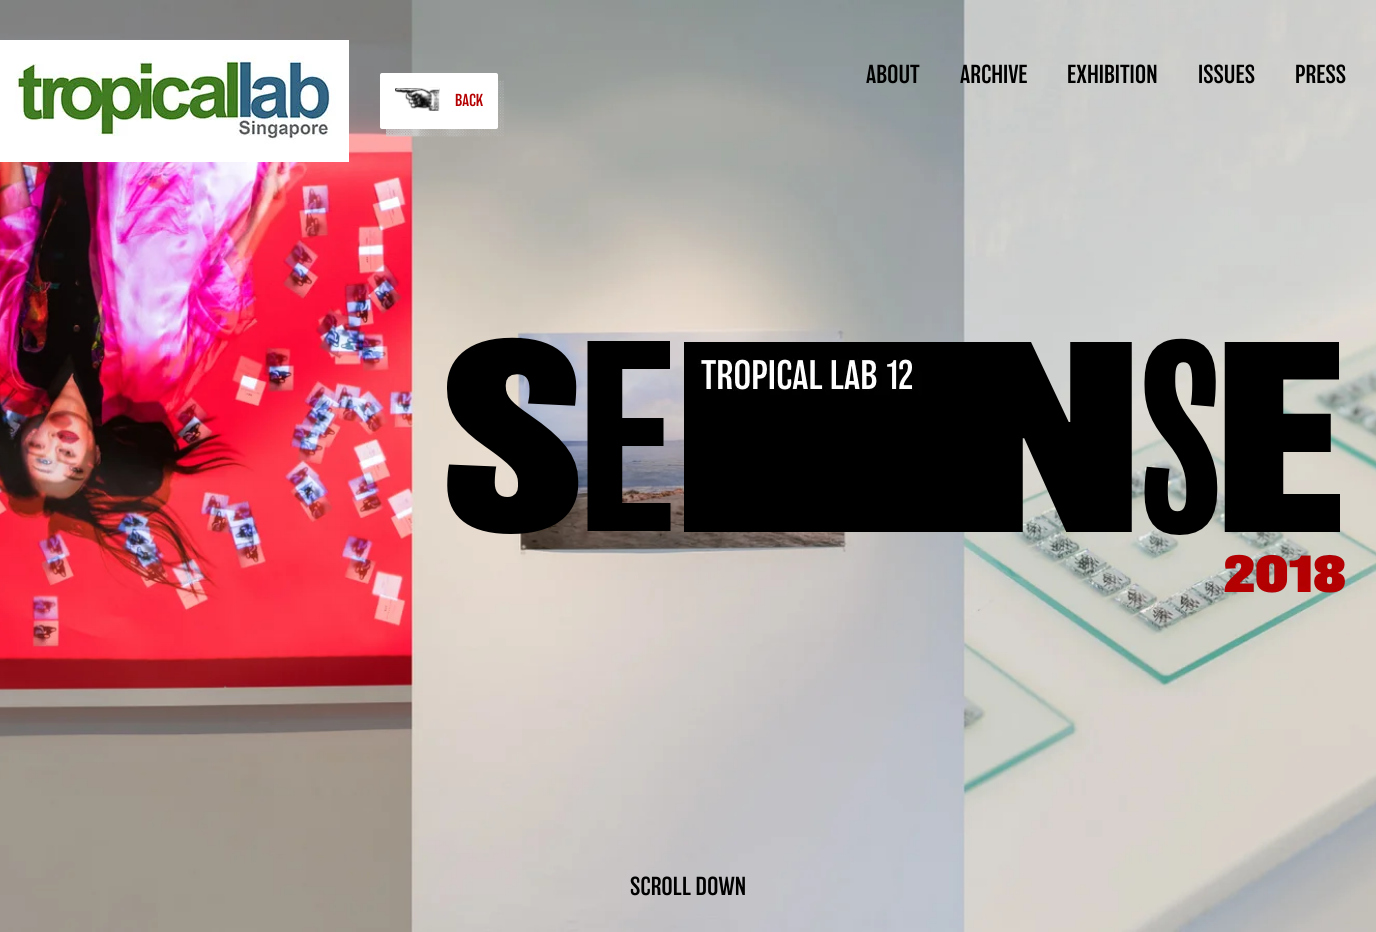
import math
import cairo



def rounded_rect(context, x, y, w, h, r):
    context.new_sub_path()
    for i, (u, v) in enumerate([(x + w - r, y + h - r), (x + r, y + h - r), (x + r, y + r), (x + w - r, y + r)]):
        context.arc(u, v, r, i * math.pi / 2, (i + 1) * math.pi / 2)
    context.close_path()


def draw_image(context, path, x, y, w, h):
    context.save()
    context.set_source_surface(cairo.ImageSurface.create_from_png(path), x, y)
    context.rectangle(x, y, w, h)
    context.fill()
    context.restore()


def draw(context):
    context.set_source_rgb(1, 1, 1)
    context.paint()
    draw_image(context, "images/4.png", 0, 0, 1376, 932)
    draw_image(context, "images/1.png", 0, 40, 349, 122)
    draw_image(context, "images/2.png", 386, 80, 118, 57)
    context.set_source_rgb(1, 1, 1)
    rounded_rect(context, 380, 73, 118, 56, 2)
    context.fill()
    draw_image(context, "images/3.png", 395, 87, 45, 24)
    draw_image(context, "images/5.png", 447, 337, 898, 256)
    context.select_font_face("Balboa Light")
    context.set_font_size(24)
    context.set_source_rgb(0, 0, 0)
    context.move_to(866, 83)
    context.show_text("ABOUT")
    context.move_to(960, 83)
    context.show_text("ARCHIVE")
    context.move_to(1067, 83)
    context.show_text("EXHIBITION")
    context.move_to(1198, 83)
    context.show_text("ISSUES")
    context.move_to(1295, 83)
    context.show_text("PRESS")
    context.set_font_size(16)
    context.set_source_rgb(180 / 255, 0, 1 / 255)
    context.move_to(455, 106)
    context.show_text("BACK")
    context.set_font_size(24)
    context.set_source_rgb(0, 0, 0)
    context.move_to(630, 895)
    context.show_text("SCROLL DOWN")


surface = cairo.ImageSurface(cairo.Format.RGB24, 1376, 932)
context = cairo.Context(surface)
options = cairo.FontOptions()
options.set_hint_metrics(cairo.HintMetrics.OFF)
options.set_hint_style(cairo.HintStyle.NONE)
context.set_font_options(options)
context.set_miter_limit(4)
draw(context)
surface.write_to_png("out.png")
